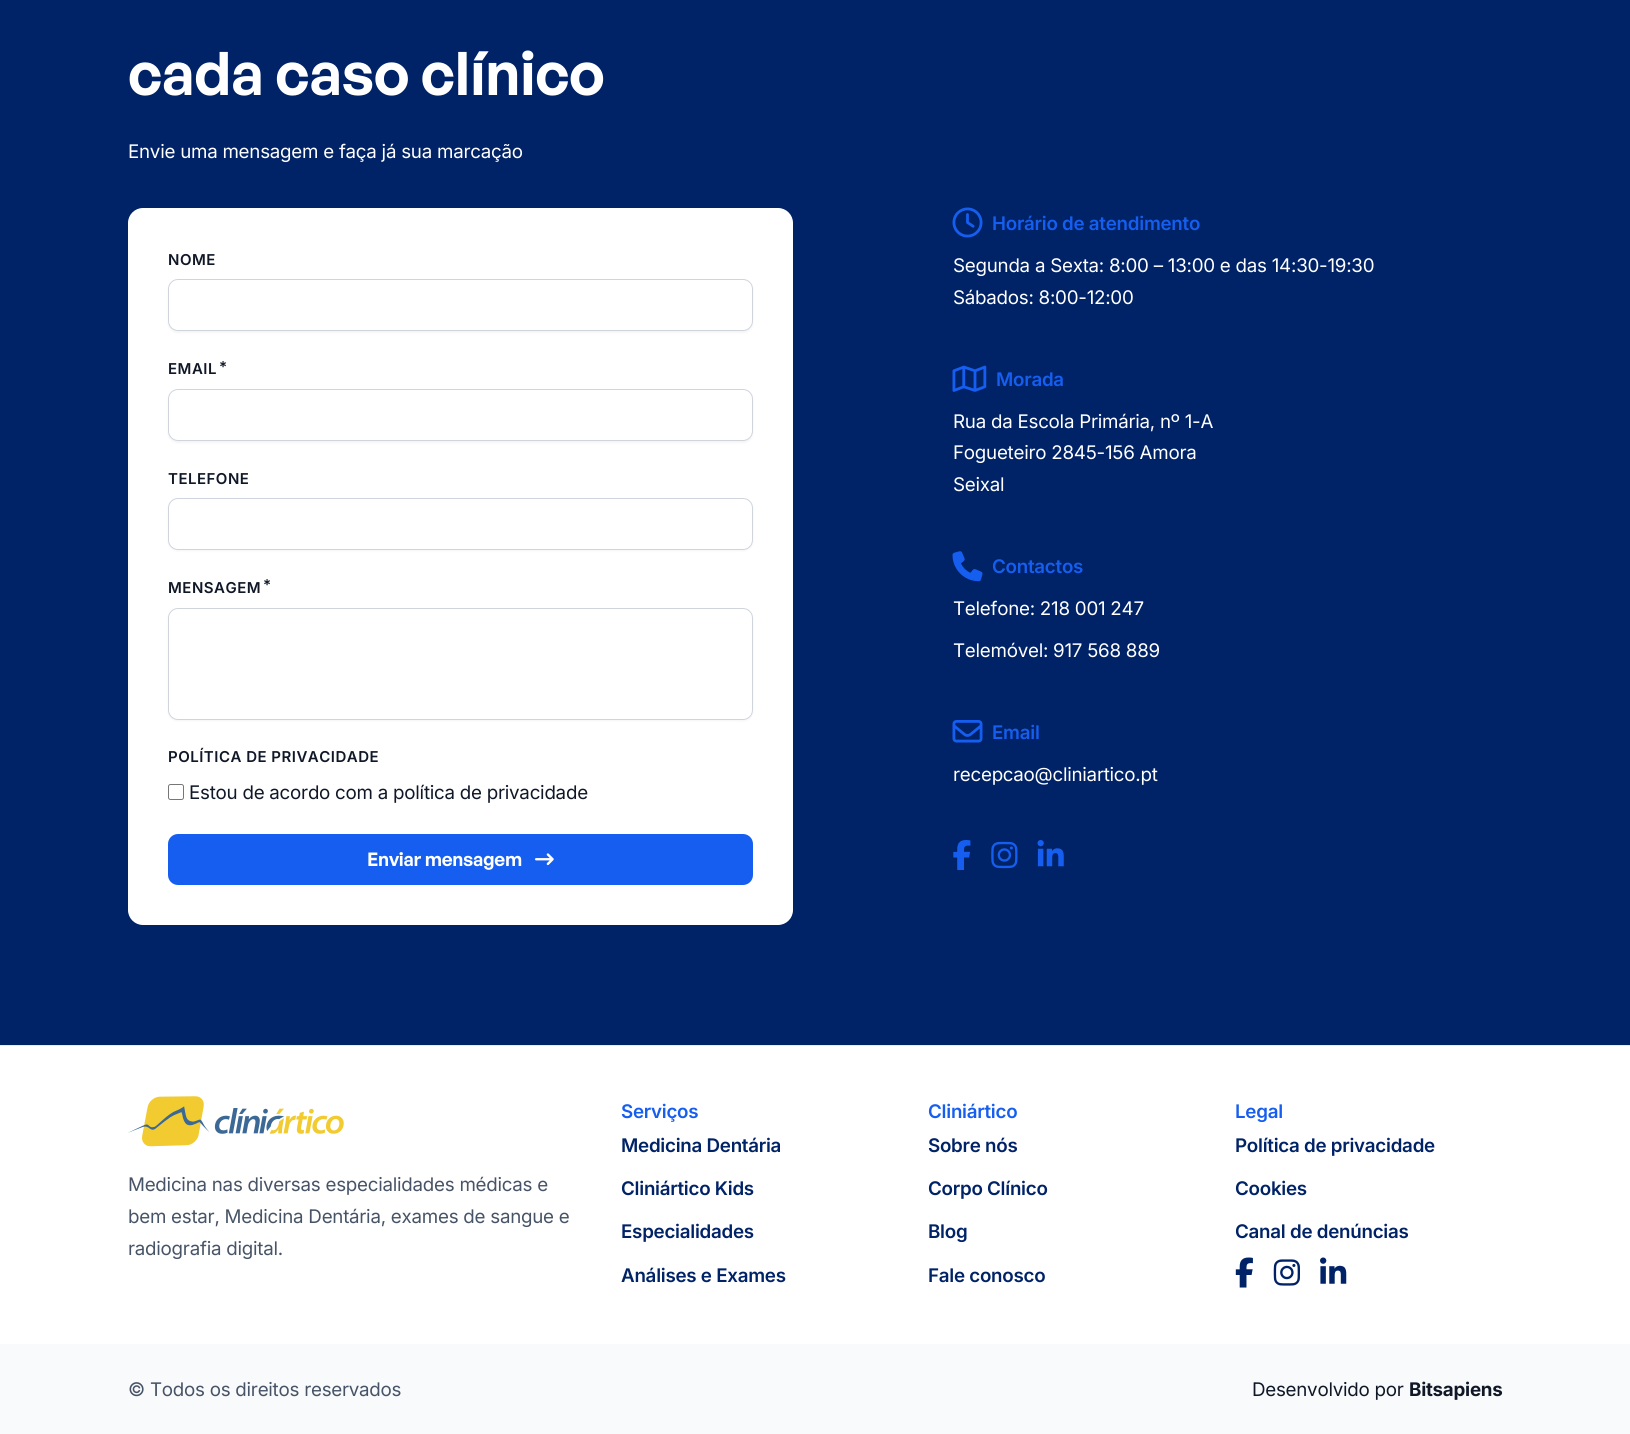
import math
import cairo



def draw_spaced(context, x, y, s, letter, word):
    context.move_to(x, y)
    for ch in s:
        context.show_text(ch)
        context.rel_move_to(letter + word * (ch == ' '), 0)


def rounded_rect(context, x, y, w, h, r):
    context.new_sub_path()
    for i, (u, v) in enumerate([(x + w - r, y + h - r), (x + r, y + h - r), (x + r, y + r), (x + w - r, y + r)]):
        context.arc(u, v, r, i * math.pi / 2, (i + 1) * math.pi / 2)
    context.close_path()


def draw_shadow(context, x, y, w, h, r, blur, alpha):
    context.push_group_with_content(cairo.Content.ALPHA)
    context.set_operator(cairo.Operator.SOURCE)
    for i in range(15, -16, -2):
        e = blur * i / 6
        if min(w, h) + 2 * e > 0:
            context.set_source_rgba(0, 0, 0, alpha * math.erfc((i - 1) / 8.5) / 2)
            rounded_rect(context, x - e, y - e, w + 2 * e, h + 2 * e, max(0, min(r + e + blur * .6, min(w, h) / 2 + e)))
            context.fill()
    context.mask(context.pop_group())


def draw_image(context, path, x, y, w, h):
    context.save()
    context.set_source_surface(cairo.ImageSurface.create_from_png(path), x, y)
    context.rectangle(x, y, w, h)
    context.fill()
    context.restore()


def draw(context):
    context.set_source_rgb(1, 1, 1)
    context.paint()
    context.set_source_rgb(0, 34 / 255, 102 / 255)
    context.rectangle(0, 0, 1630, 1045)
    context.fill()
    context.set_source_rgb(1, 1, 1)
    rounded_rect(context, 128, 208, 665, 717, 15)
    context.fill()
    context.set_source_rgb(16 / 255, 24 / 255, 40 / 255)
    draw_shadow(context, 168, 280, 585, 53, 10, 1, 0.05)
    context.set_source_rgb(1, 1, 1)
    rounded_rect(context, 168.5, 279.5, 584, 51, 9.5)
    context.fill_preserve()
    context.set_source_rgb(208 / 255, 213 / 255, 221 / 255)
    context.set_line_width(1)
    context.stroke()
    context.set_source_rgb(16 / 255, 24 / 255, 40 / 255)
    draw_shadow(context, 168, 390, 585, 53, 10, 1, 0.05)
    context.set_source_rgb(1, 1, 1)
    rounded_rect(context, 168.5, 389.5, 584, 51, 9.5)
    context.fill_preserve()
    context.set_source_rgb(208 / 255, 213 / 255, 221 / 255)
    context.stroke()
    context.set_source_rgb(16 / 255, 24 / 255, 40 / 255)
    draw_shadow(context, 168, 499, 585, 52, 10, 1, 0.05)
    context.set_source_rgb(1, 1, 1)
    rounded_rect(context, 168.5, 498.5, 584, 51, 9.5)
    context.fill_preserve()
    context.set_source_rgb(208 / 255, 213 / 255, 221 / 255)
    context.stroke()
    context.set_source_rgb(16 / 255, 24 / 255, 40 / 255)
    draw_shadow(context, 168, 609, 585, 112, 10, 1, 0.05)
    context.set_source_rgb(1, 1, 1)
    rounded_rect(context, 168.5, 608.5, 584, 111, 9.5)
    context.fill_preserve()
    context.set_source_rgb(208 / 255, 213 / 255, 221 / 255)
    context.stroke()
    rounded_rect(context, 168.5, 784.5, 15, 15, 2)
    context.set_source_rgb(118 / 255, 118 / 255, 118 / 255)
    context.stroke()
    context.set_source_rgb(21 / 255, 94 / 255, 239 / 255)
    rounded_rect(context, 168, 834, 585, 51, 10)
    context.fill()
    draw_image(context, "images/1.png", 535, 853, 19, 13)
    draw_image(context, "images/2.png", 952, 207, 31, 31)
    draw_image(context, "images/3.png", 952, 365, 35, 27)
    draw_image(context, "images/4.png", 952, 551, 31, 31)
    draw_image(context, "images/5.png", 952, 720, 31, 23)
    draw_image(context, "images/6.png", 953, 840, 18, 30)
    draw_image(context, "images/7.png", 991, 841, 27, 28)
    draw_image(context, "images/8.png", 1037, 840, 27, 27)
    context.set_source_rgb(234 / 255, 236 / 255, 240 / 255)
    context.rectangle(0, 1045, 1630, 1)
    context.fill()
    draw_image(context, "images/9.png", 128, 1096, 216, 51)
    draw_image(context, "images/10.png", 1235, 1257, 18, 31)
    draw_image(context, "images/11.png", 1273, 1259, 27, 27)
    draw_image(context, "images/12.png", 1320, 1257, 27, 27)
    context.set_source_rgb(249 / 255, 250 / 255, 251 / 255)
    context.rectangle(0, 1344, 1630, 90)
    context.fill()
    context.select_font_face("General Sans SemiBold")
    context.set_font_size(60)
    context.set_source_rgb(1, 1, 1)
    draw_spaced(context, 128, 95, "cada caso clínico", -0.6, 0)
    context.select_font_face("Inter")
    context.set_font_size(18.75)
    draw_spaced(context, 128, 158, "Envie uma mensagem e faça já sua marcação", -0.25, 0)
    context.select_font_face("Inter SemiBold")
    context.set_font_size(15)
    context.set_source_rgb(16 / 255, 24 / 255, 40 / 255)
    draw_spaced(context, 168, 265, "NOME", 0.5, 0)
    draw_spaced(context, 168, 374, "EMAIL", 0.5, 0)
    draw_spaced(context, 219, 372, "*", 0.5, 0)
    draw_spaced(context, 168, 484, "TELEFONE", 0.5, 0)
    draw_spaced(context, 168, 593, "MENSAGEM", 0.5, 0)
    draw_spaced(context, 263, 590, "*", 0.5, 0)
    draw_spaced(context, 168, 762, "POLÍTICA DE PRIVACIDADE", 0.5, 0)
    context.select_font_face("Inter")
    context.set_font_size(18.75)
    draw_spaced(context, 189, 799, "Estou de acordo com a política de privacidade", -0.25, 0)
    context.select_font_face("General Sans SemiBold")
    context.set_source_rgb(1, 1, 1)
    draw_spaced(context, 367, 866, "Enviar mensagem", -0.25, 0)
    context.select_font_face("Inter SemiBold")
    context.set_source_rgb(21 / 255, 94 / 255, 239 / 255)
    draw_spaced(context, 992, 230, "Horário de atendimento", -0.25, 0)
    context.select_font_face("Inter")
    context.set_source_rgb(1, 1, 1)
    draw_spaced(context, 953, 272, "Segunda a Sexta: 8:00 – 13:00 e das 14:30-19:30", -0.25, 0)
    draw_spaced(context, 953, 304, "Sábados: 8:00-12:00", -0.25, 0)
    context.select_font_face("Inter SemiBold")
    context.set_source_rgb(21 / 255, 94 / 255, 239 / 255)
    draw_spaced(context, 996, 386, "Morada", -0.25, 0)
    context.select_font_face("Inter")
    context.set_source_rgb(1, 1, 1)
    draw_spaced(context, 953, 428, "Rua da Escola Primária, nº 1-A", -0.25, 0)
    draw_spaced(context, 953, 459, "Fogueteiro 2845-156 Amora", -0.25, 0)
    draw_spaced(context, 953, 491, "Seixal", -0.25, 0)
    context.select_font_face("Inter SemiBold")
    context.set_source_rgb(21 / 255, 94 / 255, 239 / 255)
    draw_spaced(context, 992, 573, "Contactos", -0.25, 0)
    context.select_font_face("Inter")
    context.set_source_rgb(1, 1, 1)
    draw_spaced(context, 953, 615, "Telefone: 218 001 247", -0.25, 0)
    draw_spaced(context, 953, 657, "Telemóvel: 917 568 889", -0.25, 0)
    context.select_font_face("Inter SemiBold")
    context.set_source_rgb(21 / 255, 94 / 255, 239 / 255)
    draw_spaced(context, 992, 739, "Email", -0.25, 0)
    context.select_font_face("Inter")
    context.set_source_rgb(1, 1, 1)
    draw_spaced(context, 953, 781, "recepcao@cliniartico.pt", -0.25, 0)
    context.set_source_rgb(71 / 255, 84 / 255, 103 / 255)
    draw_spaced(context, 128, 1191, "Medicina nas diversas especialidades médicas e", -0.25, 0)
    draw_spaced(context, 128, 1223, "bem estar, Medicina Dentária, exames de sangue e", -0.25, 0)
    draw_spaced(context, 128, 1255, "radiografia digital.", -0.25, 0)
    context.select_font_face("Inter SemiBold")
    context.set_source_rgb(21 / 255, 94 / 255, 239 / 255)
    draw_spaced(context, 621, 1118, "Serviços", -0.25, 0)
    context.set_source_rgb(0, 34 / 255, 102 / 255)
    draw_spaced(context, 621, 1152, "Medicina Dentária", -0.25, 0)
    draw_spaced(context, 621, 1195, "Cliniártico Kids", -0.25, 0)
    draw_spaced(context, 621, 1238, "Especialidades", -0.25, 0)
    draw_spaced(context, 621, 1282, "Análises e Exames", -0.25, 0)
    context.set_source_rgb(21 / 255, 94 / 255, 239 / 255)
    draw_spaced(context, 928, 1118, "Cliniártico", -0.25, 0)
    context.set_source_rgb(0, 34 / 255, 102 / 255)
    draw_spaced(context, 928, 1152, "Sobre nós", -0.25, 0)
    draw_spaced(context, 928, 1195, "Corpo Clínico", -0.25, 0)
    draw_spaced(context, 928, 1238, "Blog", -0.25, 0)
    draw_spaced(context, 928, 1282, "Fale conosco", -0.25, 0)
    context.set_source_rgb(21 / 255, 94 / 255, 239 / 255)
    draw_spaced(context, 1235, 1118, "Legal", -0.25, 0)
    context.set_source_rgb(0, 34 / 255, 102 / 255)
    draw_spaced(context, 1235, 1152, "Política de privacidade", -0.25, 0)
    draw_spaced(context, 1235, 1195, "Cookies", -0.25, 0)
    draw_spaced(context, 1235, 1238, "Canal de denúncias", -0.25, 0)
    context.select_font_face("Inter")
    context.set_source_rgb(71 / 255, 84 / 255, 103 / 255)
    draw_spaced(context, 128, 1396, "© Todos os direitos reservados", -0.25, 0)
    context.set_source_rgb(16 / 255, 24 / 255, 40 / 255)
    draw_spaced(context, 1252, 1396, "Desenvolvido por", -0.25, 0)
    context.select_font_face("Inter", cairo.FontSlant.NORMAL, cairo.FontWeight.BOLD)
    draw_spaced(context, 1409, 1396, "Bitsapiens", -0.25, 0)


surface = cairo.ImageSurface(cairo.Format.RGB24, 1630, 1434)
context = cairo.Context(surface)
options = cairo.FontOptions()
options.set_hint_metrics(cairo.HintMetrics.OFF)
options.set_hint_style(cairo.HintStyle.NONE)
context.set_font_options(options)
context.set_miter_limit(4)
draw(context)
surface.write_to_png("out.png")
